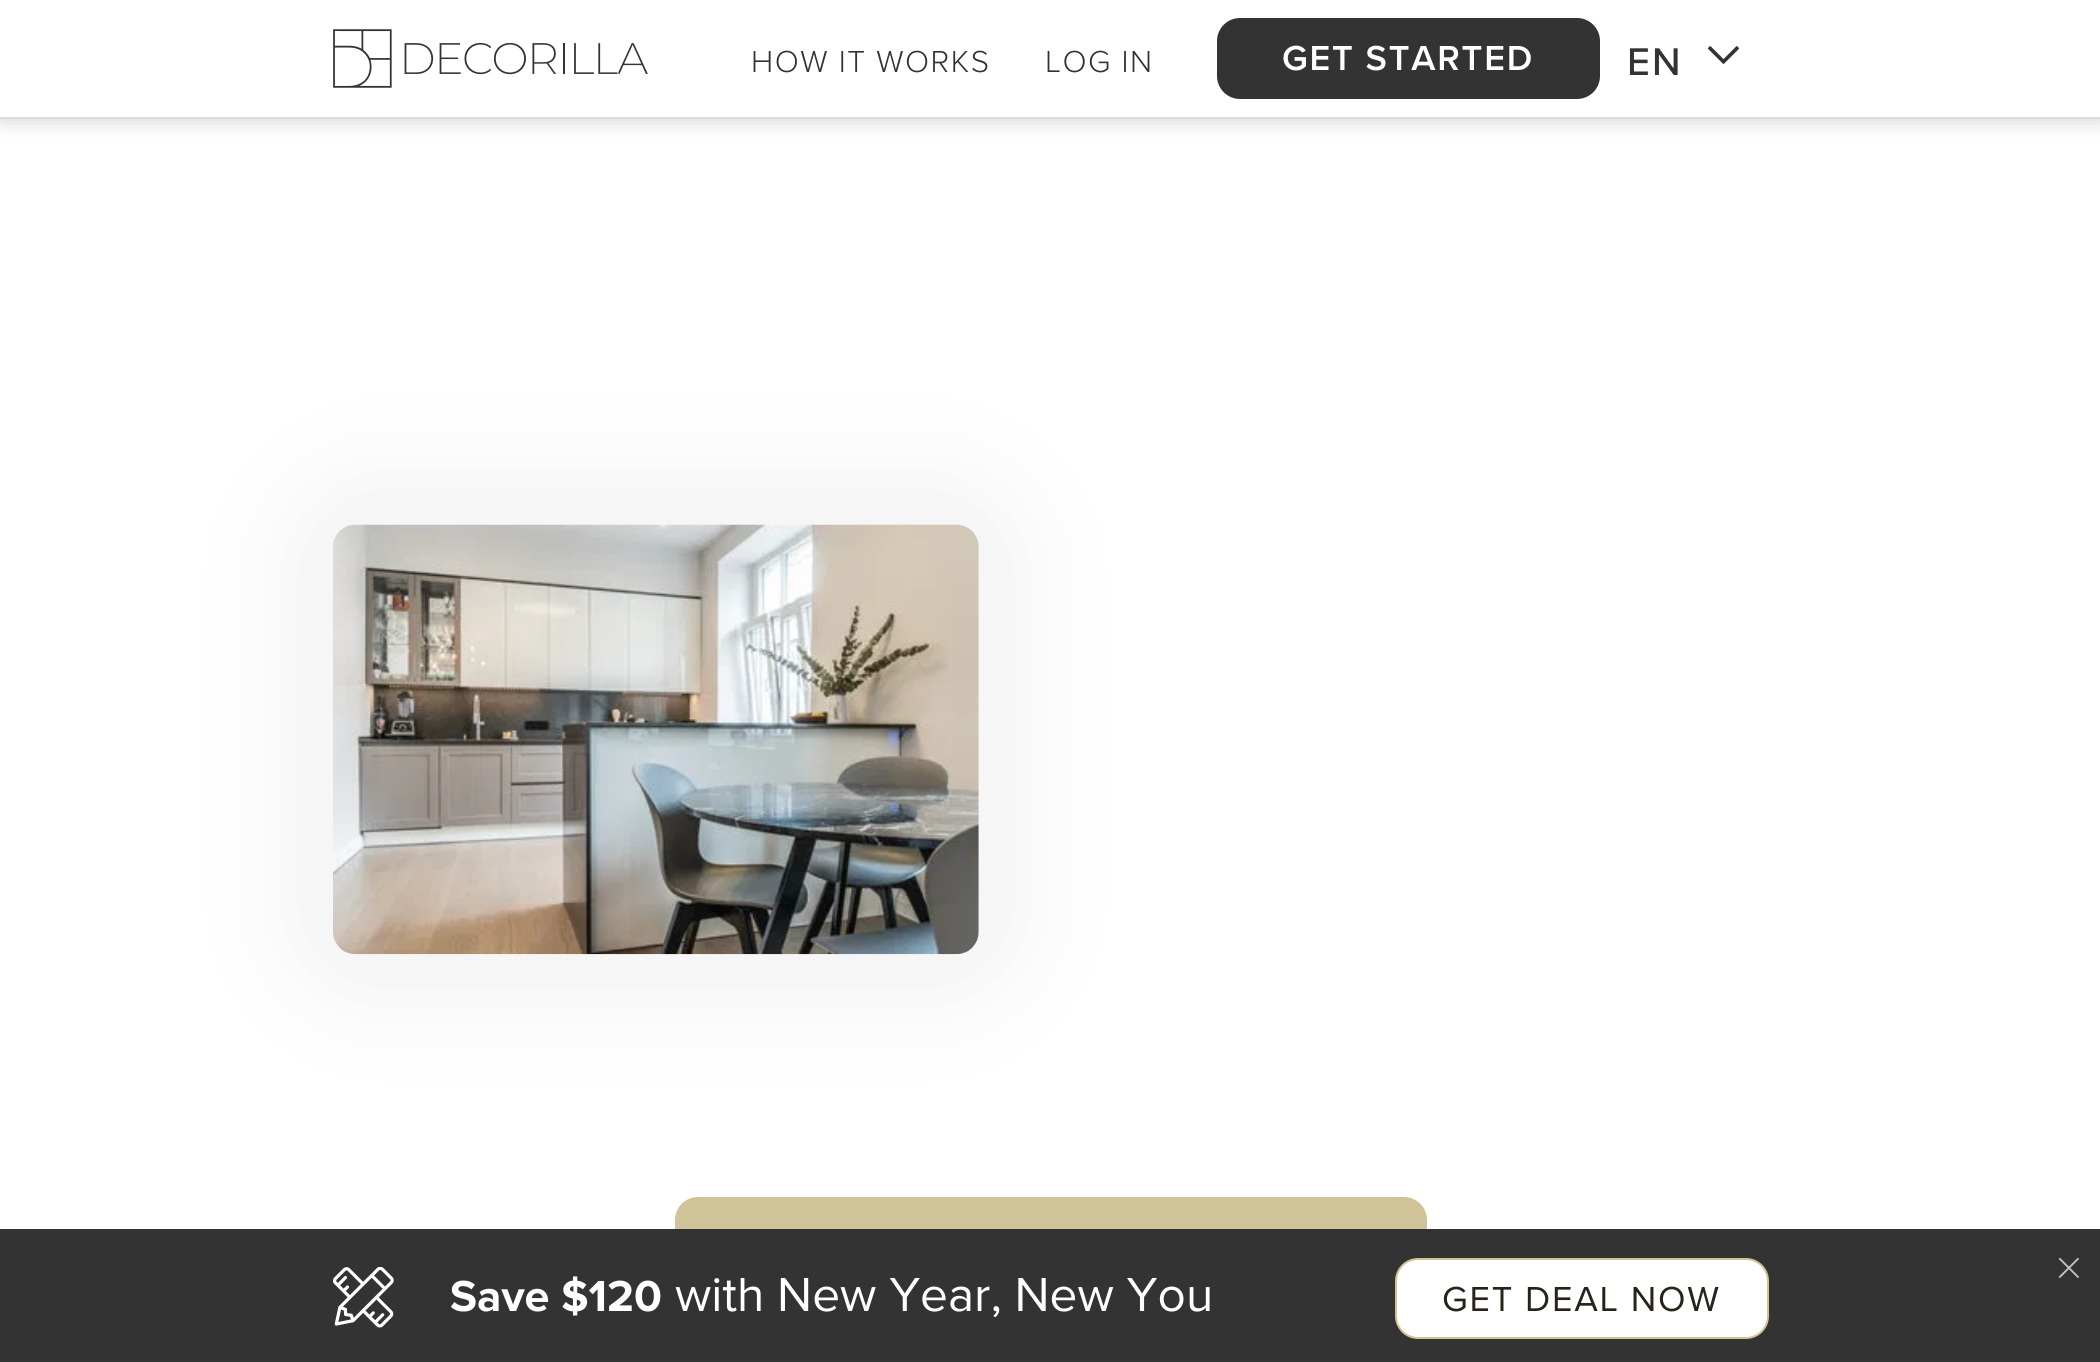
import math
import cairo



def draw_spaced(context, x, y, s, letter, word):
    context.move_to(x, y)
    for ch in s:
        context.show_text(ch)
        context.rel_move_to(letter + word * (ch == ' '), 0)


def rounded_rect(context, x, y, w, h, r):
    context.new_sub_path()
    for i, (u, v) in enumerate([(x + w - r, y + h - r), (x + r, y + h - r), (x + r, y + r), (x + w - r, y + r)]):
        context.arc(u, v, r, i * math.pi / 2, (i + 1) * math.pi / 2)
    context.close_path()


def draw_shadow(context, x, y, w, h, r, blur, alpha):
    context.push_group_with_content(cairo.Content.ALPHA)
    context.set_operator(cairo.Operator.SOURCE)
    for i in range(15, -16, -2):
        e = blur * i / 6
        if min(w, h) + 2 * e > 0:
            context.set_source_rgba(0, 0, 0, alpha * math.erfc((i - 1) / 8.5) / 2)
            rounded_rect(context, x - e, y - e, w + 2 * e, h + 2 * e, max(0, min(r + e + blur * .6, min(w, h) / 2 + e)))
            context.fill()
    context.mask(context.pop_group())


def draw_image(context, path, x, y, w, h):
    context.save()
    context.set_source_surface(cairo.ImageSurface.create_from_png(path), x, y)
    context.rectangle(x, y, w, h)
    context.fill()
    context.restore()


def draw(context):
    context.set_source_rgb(1, 1, 1)
    context.paint()
    context.set_source_rgb(0, 0, 0)
    draw_shadow(context, 0, 0, 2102, 119, 0, 11, 0.2)
    context.set_source_rgb(1, 1, 1)
    context.rectangle(0, 0, 2100, 117)
    context.fill()
    context.set_source_rgb(219 / 255, 219 / 255, 219 / 255)
    context.rectangle(0, 117, 2100, 2)
    context.fill()
    draw_image(context, "images/1.png", 333, 29, 315, 59)
    context.set_source_rgb(51 / 255, 51 / 255, 51 / 255)
    rounded_rect(context, 1218, 19, 381, 79, 22)
    context.fill_preserve()
    context.stroke()
    draw_image(context, "images/2.png", 1708, 46, 31, 18)
    context.set_source_rgb(0, 0, 0)
    draw_shadow(context, 288, 479, 736, 520, 68, 56, 0.05)
    draw_image(context, "images/3.png", 333, 524, 646, 431)
    context.set_source_rgb(209 / 255, 195 / 255, 152 / 255)
    rounded_rect(context, 676, 1198, 750, 108, 22)
    context.fill_preserve()
    context.stroke()
    context.set_source_rgb(51 / 255, 51 / 255, 51 / 255)
    context.rectangle(0, 1229, 2100, 133)
    context.fill()
    draw_image(context, "images/4.png", 2059, 1258, 20, 20)
    draw_image(context, "images/5.png", 333, 1267, 61, 61)
    context.set_source_rgb(1, 1, 1)
    rounded_rect(context, 1396, 1259, 372, 79, 22)
    context.fill_preserve()
    context.set_source_rgb(212 / 255, 194 / 255, 146 / 255)
    context.stroke()
    context.select_font_face("Proxima Nova Light")
    context.set_font_size(31.5)
    context.set_source_rgb(51 / 255, 51 / 255, 51 / 255)
    draw_spaced(context, 751, 72, "HOW IT WORKS", 1.5, 0)
    draw_spaced(context, 1045, 72, "LOG IN", 1.5, 0)
    context.select_font_face("Proxima Nova SemiBold")
    context.set_font_size(36)
    context.set_source_rgb(1, 1, 1)
    draw_spaced(context, 1282, 70, "GET STARTED", 1.75, 0)
    context.select_font_face("Proxima Nova Medium")
    context.set_font_size(40)
    context.set_source_rgb(51 / 255, 51 / 255, 51 / 255)
    draw_spaced(context, 1627, 75, "EN", 2, 0)
    context.select_font_face("Proxima Nova", cairo.FontSlant.NORMAL, cairo.FontWeight.BOLD)
    context.set_font_size(45)
    context.set_source_rgb(1, 1, 1)
    context.move_to(450, 1311)
    context.show_text("Save $120")
    context.select_font_face("Proxima Nova")
    context.set_font_size(49.5)
    context.move_to(675, 1311)
    context.show_text("with New Year, New You")
    context.set_font_size(36)
    context.set_source_rgb(39 / 255, 35 / 255, 25 / 255)
    draw_spaced(context, 1442, 1311, "GET DEAL NOW", 1.75, 0)


surface = cairo.ImageSurface(cairo.Format.RGB24, 2100, 1362)
context = cairo.Context(surface)
options = cairo.FontOptions()
options.set_hint_metrics(cairo.HintMetrics.OFF)
options.set_hint_style(cairo.HintStyle.NONE)
context.set_font_options(options)
context.set_miter_limit(4)
draw(context)
surface.write_to_png("out.png")
